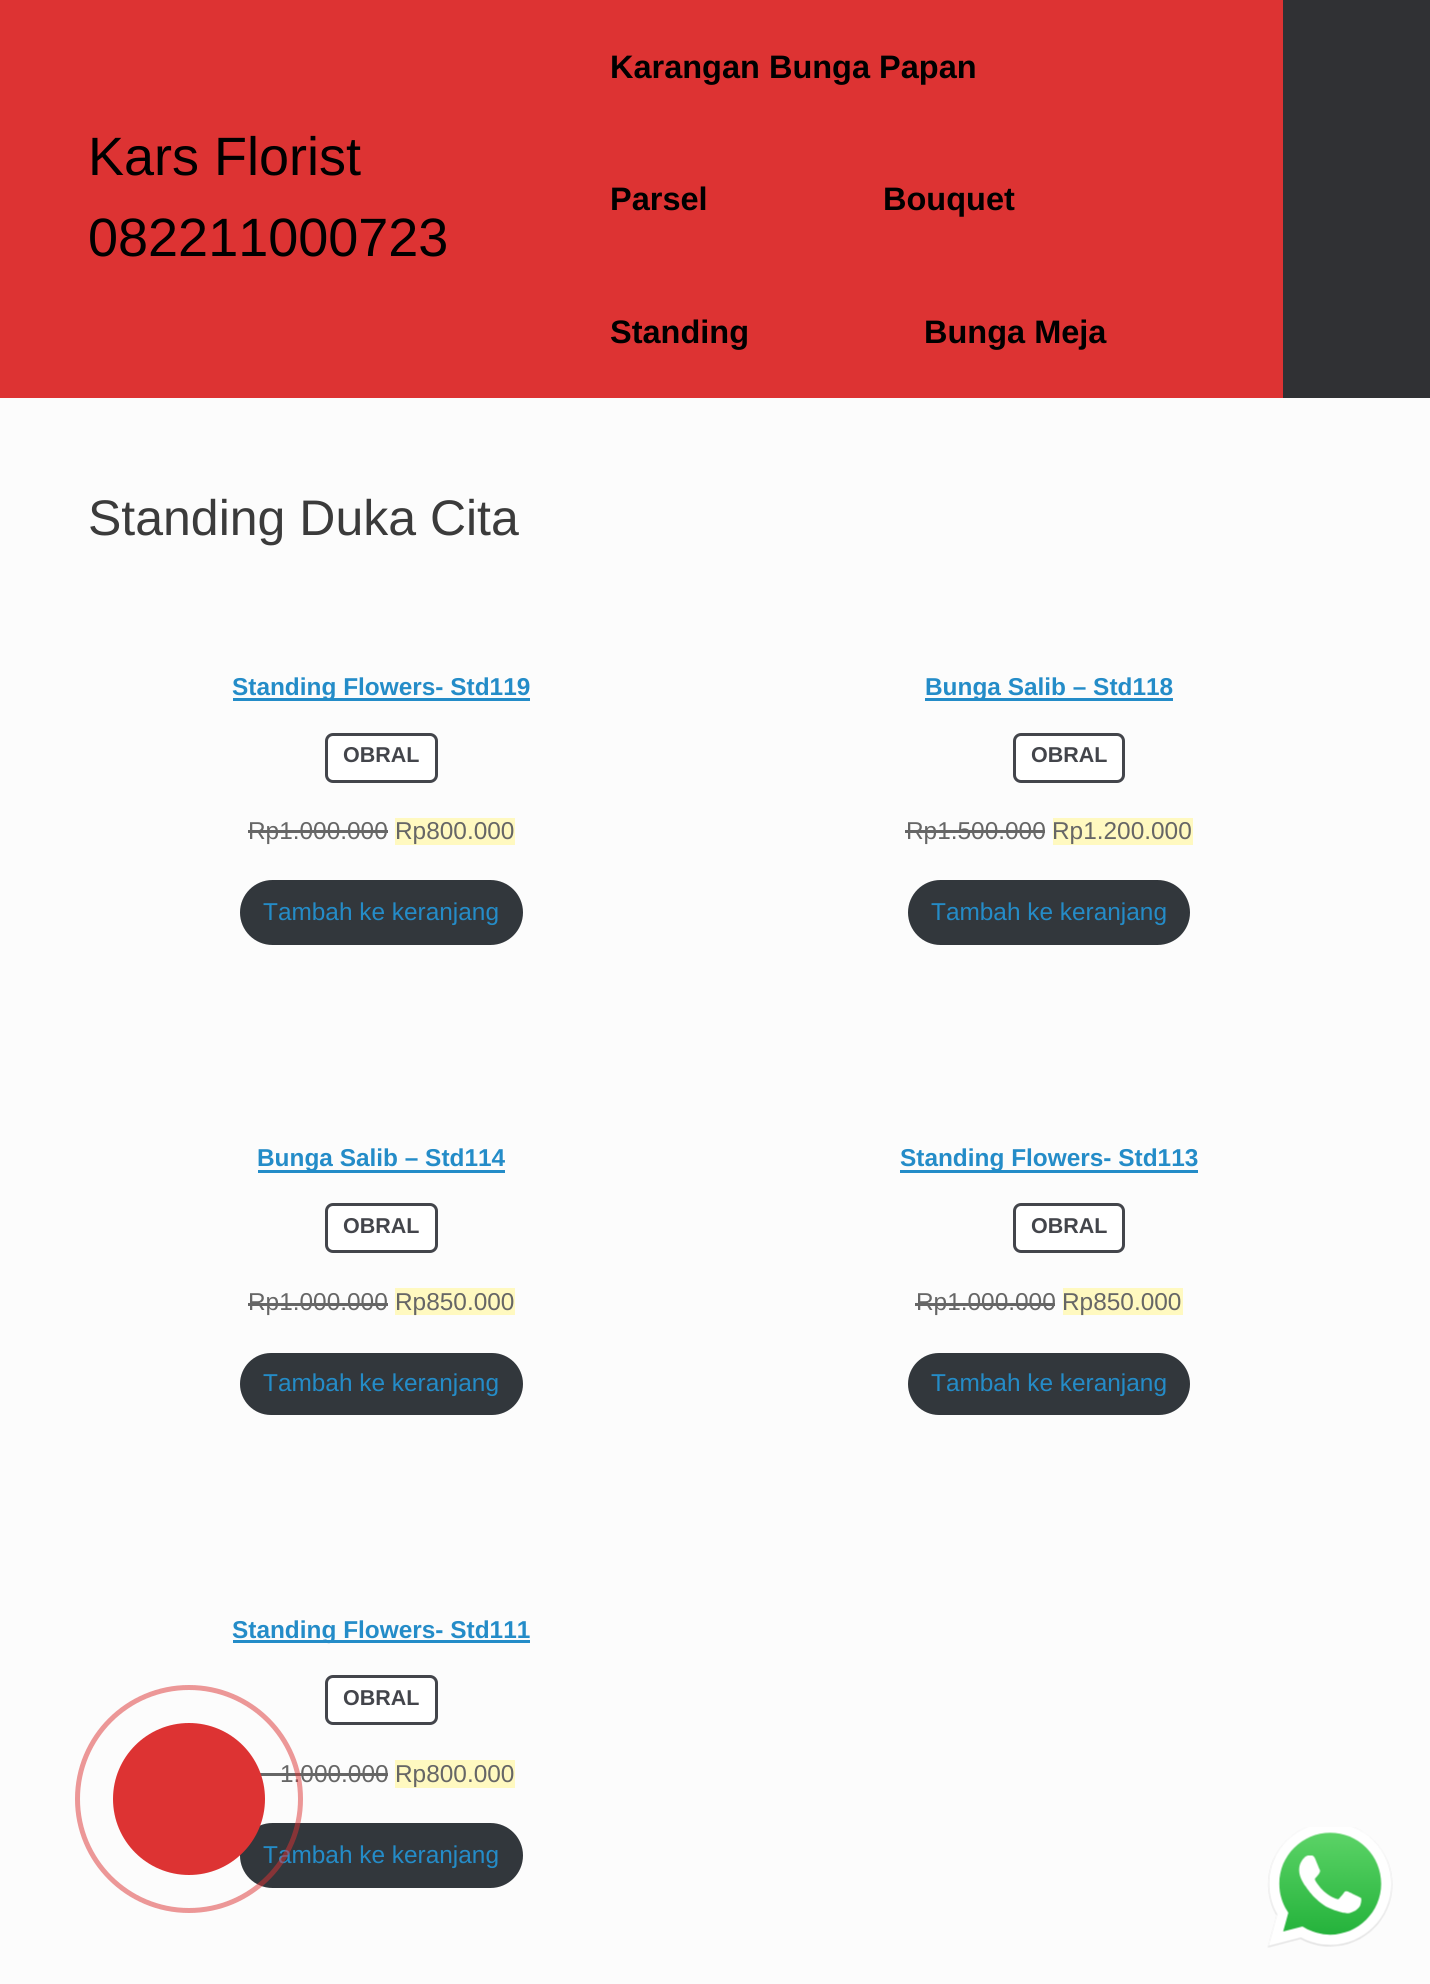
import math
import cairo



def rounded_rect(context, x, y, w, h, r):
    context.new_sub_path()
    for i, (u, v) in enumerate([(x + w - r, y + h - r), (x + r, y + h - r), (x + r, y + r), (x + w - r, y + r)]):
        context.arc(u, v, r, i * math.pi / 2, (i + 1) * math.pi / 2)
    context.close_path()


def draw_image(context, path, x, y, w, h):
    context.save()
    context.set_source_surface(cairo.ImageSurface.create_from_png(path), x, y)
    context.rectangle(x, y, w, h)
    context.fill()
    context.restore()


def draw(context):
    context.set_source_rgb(252 / 255, 252 / 255, 252 / 255)
    context.paint()
    context.set_source_rgb(221 / 255, 51 / 255, 51 / 255)
    context.rectangle(0, 0, 1283, 398)
    context.fill()
    context.set_source_rgb(48 / 255, 49 / 255, 52 / 255)
    context.rectangle(1283, 0, 147, 398)
    context.fill()
    context.set_source_rgb(36 / 255, 140 / 255, 200 / 255)
    context.rectangle(233, 698, 297, 3)
    context.fill()
    context.set_source_rgb(1, 1, 1)
    rounded_rect(context, 326.5, 734.5, 110, 47, 6.5)
    context.fill_preserve()
    context.set_source_rgb(67 / 255, 69 / 255, 75 / 255)
    context.set_line_width(3)
    context.stroke()
    context.set_source_rgb(102 / 255, 102 / 255, 102 / 255)
    context.rectangle(248, 830, 140, 3)
    context.fill()
    context.set_source_rgb(1, 249 / 255, 192 / 255)
    context.rectangle(395, 818, 120, 27)
    context.fill()
    context.set_source_rgb(50 / 255, 55 / 255, 60 / 255)
    rounded_rect(context, 240, 880, 283, 65, 32.5)
    context.fill()
    context.set_source_rgb(36 / 255, 140 / 255, 200 / 255)
    context.rectangle(925, 698, 248, 3)
    context.fill()
    context.set_source_rgb(1, 1, 1)
    rounded_rect(context, 1014.5, 734.5, 109, 47, 6.5)
    context.fill_preserve()
    context.set_source_rgb(67 / 255, 69 / 255, 75 / 255)
    context.stroke()
    context.set_source_rgb(102 / 255, 102 / 255, 102 / 255)
    context.rectangle(905, 830, 140, 3)
    context.fill()
    context.set_source_rgb(1, 249 / 255, 192 / 255)
    context.rectangle(1053, 818, 140, 27)
    context.fill()
    context.set_source_rgb(50 / 255, 55 / 255, 60 / 255)
    rounded_rect(context, 908, 880, 282, 65, 32.5)
    context.fill()
    context.set_source_rgb(36 / 255, 140 / 255, 200 / 255)
    context.rectangle(258, 1170, 247, 3)
    context.fill()
    context.set_source_rgb(1, 1, 1)
    rounded_rect(context, 326.5, 1204.5, 110, 47, 6.5)
    context.fill_preserve()
    context.set_source_rgb(67 / 255, 69 / 255, 75 / 255)
    context.stroke()
    context.set_source_rgb(102 / 255, 102 / 255, 102 / 255)
    context.rectangle(248, 1303, 140, 3)
    context.fill()
    context.set_source_rgb(1, 249 / 255, 192 / 255)
    context.rectangle(395, 1288, 120, 27)
    context.fill()
    context.set_source_rgb(50 / 255, 55 / 255, 60 / 255)
    rounded_rect(context, 240, 1353, 283, 62, 31)
    context.fill()
    context.set_source_rgb(36 / 255, 140 / 255, 200 / 255)
    context.rectangle(900, 1170, 298, 3)
    context.fill()
    context.set_source_rgb(1, 1, 1)
    rounded_rect(context, 1014.5, 1204.5, 109, 47, 6.5)
    context.fill_preserve()
    context.set_source_rgb(67 / 255, 69 / 255, 75 / 255)
    context.stroke()
    context.set_source_rgb(102 / 255, 102 / 255, 102 / 255)
    context.rectangle(915, 1303, 140, 3)
    context.fill()
    context.set_source_rgb(1, 249 / 255, 192 / 255)
    context.rectangle(1063, 1288, 120, 27)
    context.fill()
    context.set_source_rgb(50 / 255, 55 / 255, 60 / 255)
    rounded_rect(context, 908, 1353, 282, 62, 31)
    context.fill()
    context.set_source_rgb(36 / 255, 140 / 255, 200 / 255)
    context.rectangle(233, 1640, 297, 3)
    context.fill()
    context.set_source_rgb(1, 1, 1)
    rounded_rect(context, 326.5, 1676.5, 110, 47, 6.5)
    context.fill_preserve()
    context.set_source_rgb(67 / 255, 69 / 255, 75 / 255)
    context.stroke()
    context.set_source_rgb(102 / 255, 102 / 255, 102 / 255)
    context.rectangle(260, 1773, 20, 3)
    context.fill()
    context.rectangle(280, 1773, 108, 3)
    context.fill()
    context.set_source_rgb(1, 249 / 255, 192 / 255)
    context.rectangle(395, 1760, 120, 28)
    context.fill()
    context.set_source_rgb(50 / 255, 55 / 255, 60 / 255)
    rounded_rect(context, 240, 1823, 283, 65, 32.5)
    context.fill()
    draw_image(context, "images/1.png", 1267, 1827, 126, 121)
    context.select_font_face("Liberation Sans")
    context.set_font_size(54)
    context.set_source_rgb(0, 0, 0)
    context.move_to(88, 175)
    context.show_text("Kars Florist")
    context.move_to(88, 256)
    context.show_text("082211000723")
    context.select_font_face("Liberation Sans", cairo.FontSlant.NORMAL, cairo.FontWeight.BOLD)
    context.set_font_size(32.5)
    context.move_to(610, 78)
    context.show_text("Karangan Bunga Papan")
    context.move_to(610, 210)
    context.show_text("Parsel")
    context.move_to(883, 210)
    context.show_text("Bouquet")
    context.move_to(610, 343)
    context.show_text("Standing")
    context.move_to(924, 343)
    context.show_text("Bunga Meja")
    context.select_font_face("Liberation Sans")
    context.set_font_size(50)
    context.set_source_rgb(59 / 255, 59 / 255, 59 / 255)
    context.move_to(88, 535)
    context.show_text("Standing Duka Cita")
    context.select_font_face("Liberation Sans", cairo.FontSlant.NORMAL, cairo.FontWeight.BOLD)
    context.set_font_size(24.4)
    context.set_source_rgb(36 / 255, 140 / 255, 200 / 255)
    context.move_to(232, 695)
    context.show_text("Standing Flowers- Std119")
    context.set_font_size(21.5)
    context.set_source_rgb(67 / 255, 69 / 255, 75 / 255)
    context.move_to(343, 762)
    context.show_text("OBRAL")
    context.select_font_face("Liberation Sans")
    context.set_font_size(24.4)
    context.set_source_rgb(102 / 255, 102 / 255, 102 / 255)
    context.move_to(248, 839)
    context.show_text("Rp1.000.000")
    context.move_to(395, 839)
    context.show_text("Rp800.000")
    context.set_source_rgb(36 / 255, 140 / 255, 200 / 255)
    context.move_to(263, 920)
    context.show_text("Tambah ke keranjang")
    context.select_font_face("Liberation Sans", cairo.FontSlant.NORMAL, cairo.FontWeight.BOLD)
    context.move_to(925, 695)
    context.show_text("Bunga Salib – Std118")
    context.set_font_size(21.5)
    context.set_source_rgb(67 / 255, 69 / 255, 75 / 255)
    context.move_to(1031, 762)
    context.show_text("OBRAL")
    context.select_font_face("Liberation Sans")
    context.set_font_size(24.4)
    context.set_source_rgb(102 / 255, 102 / 255, 102 / 255)
    context.move_to(906, 839)
    context.show_text("Rp1.500.000")
    context.move_to(1052, 839)
    context.show_text("Rp1.200.000")
    context.set_source_rgb(36 / 255, 140 / 255, 200 / 255)
    context.move_to(931, 920)
    context.show_text("Tambah ke keranjang")
    context.select_font_face("Liberation Sans", cairo.FontSlant.NORMAL, cairo.FontWeight.BOLD)
    context.move_to(257, 1166)
    context.show_text("Bunga Salib – Std114")
    context.set_font_size(21.5)
    context.set_source_rgb(67 / 255, 69 / 255, 75 / 255)
    context.move_to(343, 1233)
    context.show_text("OBRAL")
    context.select_font_face("Liberation Sans")
    context.set_font_size(24.4)
    context.set_source_rgb(102 / 255, 102 / 255, 102 / 255)
    context.move_to(248, 1310)
    context.show_text("Rp1.000.000")
    context.move_to(395, 1310)
    context.show_text("Rp850.000")
    context.set_source_rgb(36 / 255, 140 / 255, 200 / 255)
    context.move_to(263, 1391)
    context.show_text("Tambah ke keranjang")
    context.select_font_face("Liberation Sans", cairo.FontSlant.NORMAL, cairo.FontWeight.BOLD)
    context.move_to(900, 1166)
    context.show_text("Standing Flowers- Std113")
    context.set_font_size(21.5)
    context.set_source_rgb(67 / 255, 69 / 255, 75 / 255)
    context.move_to(1031, 1233)
    context.show_text("OBRAL")
    context.select_font_face("Liberation Sans")
    context.set_font_size(24.4)
    context.set_source_rgb(102 / 255, 102 / 255, 102 / 255)
    context.move_to(916, 1310)
    context.show_text("Rp1.000.000")
    context.move_to(1062, 1310)
    context.show_text("Rp850.000")
    context.set_source_rgb(36 / 255, 140 / 255, 200 / 255)
    context.move_to(931, 1391)
    context.show_text("Tambah ke keranjang")
    context.select_font_face("Liberation Sans", cairo.FontSlant.NORMAL, cairo.FontWeight.BOLD)
    context.move_to(232, 1638)
    context.show_text("Standing Flowers- Std111")
    context.set_font_size(21.5)
    context.set_source_rgb(67 / 255, 69 / 255, 75 / 255)
    context.move_to(343, 1705)
    context.show_text("OBRAL")
    context.select_font_face("Liberation Sans")
    context.set_font_size(24.4)
    context.set_source_rgb(102 / 255, 102 / 255, 102 / 255)
    context.move_to(280, 1782)
    context.show_text("1.000.000")
    context.move_to(395, 1782)
    context.show_text("Rp800.000")
    context.set_source_rgb(36 / 255, 140 / 255, 200 / 255)
    context.move_to(263, 1863)
    context.show_text("Tambah ke keranjang")
    context.new_path()
    context.arc(189, 1799, 111.5, 0, 2 * math.pi)
    context.set_source_rgba(221 / 255, 51 / 255, 51 / 255, 0.5)
    context.set_line_width(5)
    context.stroke()
    context.set_source_rgb(221 / 255, 51 / 255, 51 / 255)
    context.arc(189, 1799, 76, 0, 2 * math.pi)
    context.fill()


surface = cairo.ImageSurface(cairo.Format.RGB24, 1430, 1984)
context = cairo.Context(surface)
options = cairo.FontOptions()
options.set_hint_metrics(cairo.HintMetrics.OFF)
options.set_hint_style(cairo.HintStyle.NONE)
context.set_font_options(options)
context.set_miter_limit(4)
draw(context)
surface.write_to_png("out.png")
